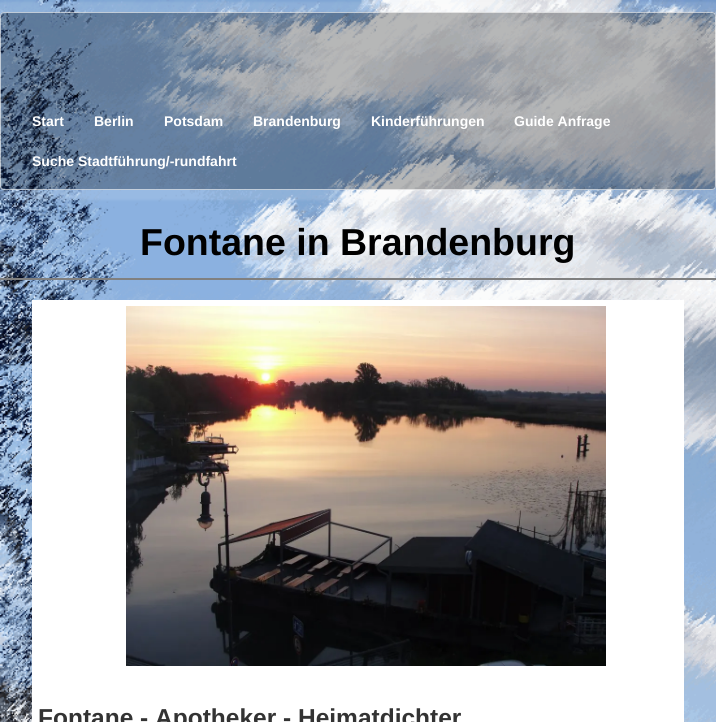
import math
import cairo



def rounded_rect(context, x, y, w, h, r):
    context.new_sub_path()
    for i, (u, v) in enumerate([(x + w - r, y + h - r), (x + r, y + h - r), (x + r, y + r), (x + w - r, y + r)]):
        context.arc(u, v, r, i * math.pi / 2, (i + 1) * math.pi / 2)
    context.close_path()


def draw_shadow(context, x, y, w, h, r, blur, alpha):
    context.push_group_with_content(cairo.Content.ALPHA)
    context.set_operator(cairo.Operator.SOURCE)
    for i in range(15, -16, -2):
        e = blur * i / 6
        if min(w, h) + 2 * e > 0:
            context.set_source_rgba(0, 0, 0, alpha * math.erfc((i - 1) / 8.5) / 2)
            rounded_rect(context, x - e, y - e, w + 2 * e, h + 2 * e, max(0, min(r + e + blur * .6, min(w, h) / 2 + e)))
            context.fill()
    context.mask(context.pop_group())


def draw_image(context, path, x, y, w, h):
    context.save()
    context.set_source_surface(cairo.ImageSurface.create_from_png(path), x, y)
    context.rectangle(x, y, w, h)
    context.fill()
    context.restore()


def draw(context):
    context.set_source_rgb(1, 1, 1)
    context.paint()
    draw_image(context, "images/1.png", 0, 0, 716, 722)
    context.save()
    context.set_fill_rule(cairo.FillRule.EVEN_ODD)
    context.new_path()
    context.move_to(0, 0)
    context.line_to(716, 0)
    context.line_to(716, 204)
    context.line_to(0, 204)
    context.close_path()
    context.move_to(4, 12)
    context.line_to(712, 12)
    context.curve_to(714, 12, 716, 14, 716, 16)
    context.line_to(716, 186)
    context.curve_to(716, 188, 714, 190, 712, 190)
    context.line_to(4, 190)
    context.curve_to(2, 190, 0, 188, 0, 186)
    context.line_to(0, 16)
    context.curve_to(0, 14, 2, 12, 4, 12)
    context.close_path()
    context.clip()
    draw_shadow(context, -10, 2, 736, 198, 14, 1, 0.11)
    context.restore()
    context.set_source_rgba(0, 0, 0, 0.27)
    rounded_rect(context, 0, 12, 716, 178, 4)
    context.fill()
    rounded_rect(context, 0.5, 12.5, 715, 177, 3.5)
    context.set_source_rgba(1, 1, 1, 0.61)
    context.set_line_width(1)
    context.stroke()
    context.set_source_rgb(128 / 255, 128 / 255, 128 / 255)
    context.rectangle(0, 278, 716, 2)
    context.fill()
    context.set_source_rgb(1, 1, 1)
    context.rectangle(32, 300, 652, 422)
    context.fill()
    draw_image(context, "images/2.png", 126, 306, 480, 360)
    context.select_font_face("Liberation Sans", cairo.FontSlant.NORMAL, cairo.FontWeight.BOLD)
    context.set_font_size(14)
    context.move_to(32, 126)
    context.show_text("Start")
    context.move_to(94, 126)
    context.show_text("Berlin")
    context.move_to(164, 126)
    context.show_text("Potsdam")
    context.move_to(253, 126)
    context.show_text("Brandenburg")
    context.move_to(371, 126)
    context.show_text("Kinderführungen")
    context.move_to(514, 126)
    context.show_text("Guide Anfrage")
    context.move_to(32, 166)
    context.show_text("Suche Stadtführung/-rundfahrt")
    context.set_font_size(37.5)
    context.set_source_rgb(0, 0, 0)
    context.move_to(140, 255)
    context.show_text("Fontane in Brandenburg")
    context.set_font_size(24.5)
    context.set_source_rgb(51 / 255, 51 / 255, 51 / 255)
    context.move_to(38, 726)
    context.show_text("Fontane - Apotheker - Heimatdichter")


surface = cairo.ImageSurface(cairo.Format.RGB24, 716, 722)
context = cairo.Context(surface)
options = cairo.FontOptions()
options.set_hint_metrics(cairo.HintMetrics.OFF)
options.set_hint_style(cairo.HintStyle.NONE)
context.set_font_options(options)
context.set_miter_limit(4)
draw(context)
surface.write_to_png("out.png")
